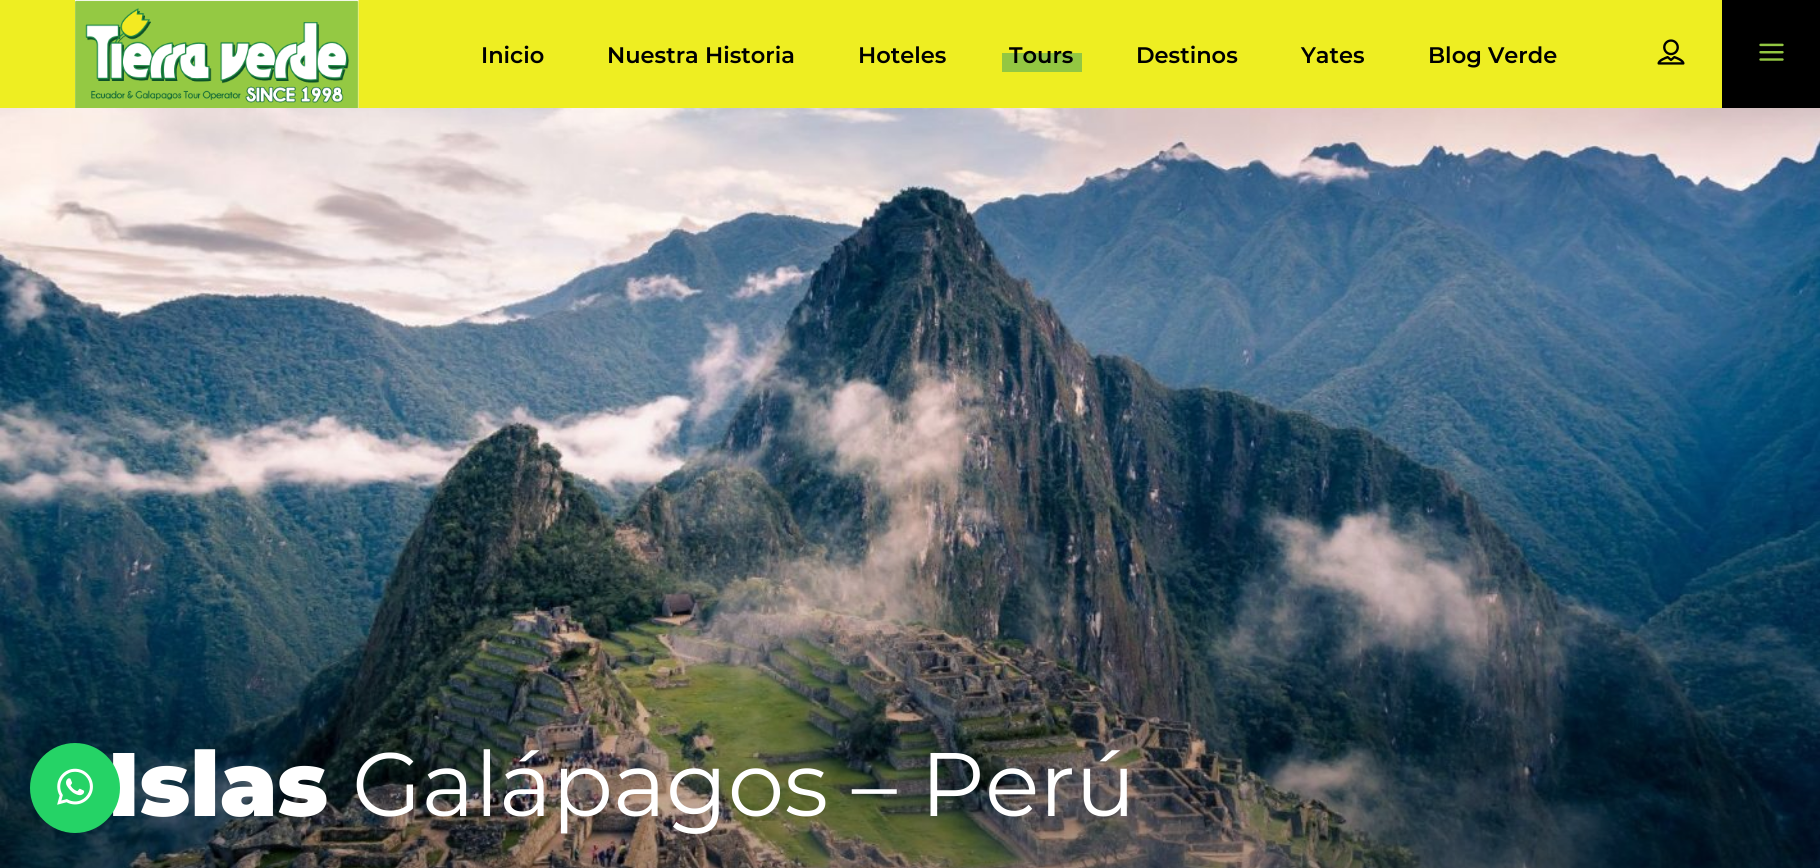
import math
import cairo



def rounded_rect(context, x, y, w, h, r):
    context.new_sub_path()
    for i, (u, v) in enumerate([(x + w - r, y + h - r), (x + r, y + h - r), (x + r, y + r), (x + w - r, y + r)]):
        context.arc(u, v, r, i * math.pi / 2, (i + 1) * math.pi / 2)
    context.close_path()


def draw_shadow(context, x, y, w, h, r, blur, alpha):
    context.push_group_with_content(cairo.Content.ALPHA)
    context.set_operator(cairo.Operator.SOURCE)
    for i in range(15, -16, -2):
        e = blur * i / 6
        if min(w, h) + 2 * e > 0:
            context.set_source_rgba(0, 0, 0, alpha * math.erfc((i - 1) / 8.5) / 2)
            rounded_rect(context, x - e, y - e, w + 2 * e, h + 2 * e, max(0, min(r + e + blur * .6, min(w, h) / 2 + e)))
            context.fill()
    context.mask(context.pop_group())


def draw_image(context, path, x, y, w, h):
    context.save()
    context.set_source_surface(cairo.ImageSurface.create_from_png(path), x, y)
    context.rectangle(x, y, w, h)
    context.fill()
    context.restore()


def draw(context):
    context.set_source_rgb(1, 1, 1)
    context.paint()
    draw_image(context, "images/5.png", 0, 108, 1820, 760)
    draw_image(context, "images/6.png", 22, 142, 1798, 726)
    gradient = cairo.LinearGradient(911, 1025, 911, 0)
    gradient.add_color_stop_rgba(0, 0, 0, 0, 0.39)
    gradient.add_color_stop_rgba(0.01, 0, 0, 0, 0.39)
    gradient.add_color_stop_rgba(0.56, 0, 0, 0, 0)
    gradient.add_color_stop_rgba(0.74, 0, 0, 0, 0)
    context.set_source(gradient)
    context.rectangle(0, 482, 1820, 386)
    context.fill()
    context.set_source_rgb(0, 0, 0)
    draw_shadow(context, 30, 746, 90, 90, 45, 24, 0.16)
    draw_shadow(context, 30, 744, 90, 90, 45, 4.5, 0.06)
    context.set_source_rgb(238 / 255, 238 / 255, 34 / 255)
    context.rectangle(0, 0, 1722, 108)
    context.fill()
    draw_image(context, "images/2.png", 75, 0, 284, 108)
    context.set_source_rgb(147 / 255, 199 / 255, 66 / 255)
    context.rectangle(1002, 53, 80, 19)
    context.fill()
    draw_image(context, "images/3.png", 1657, 39, 28, 26)
    context.set_source_rgb(0, 0, 0)
    context.rectangle(1722, 0, 98, 108)
    context.fill()
    draw_image(context, "images/4.png", 1759, 43, 25, 18)
    context.select_font_face("Montserrat SemiBold")
    context.set_font_size(22.5)
    context.move_to(481, 63)
    context.show_text("Inicio")
    context.move_to(607, 63)
    context.show_text("Nuestra Historia")
    context.move_to(858, 63)
    context.show_text("Hoteles")
    context.move_to(1009, 63)
    context.show_text("Tours")
    context.move_to(1136, 63)
    context.show_text("Destinos")
    context.move_to(1301, 63)
    context.show_text("Yates")
    context.move_to(1428, 63)
    context.show_text("Blog Verde")
    context.select_font_face("Montserrat Black")
    context.set_font_size(90)
    context.set_source_rgb(1, 1, 1)
    context.move_to(108, 816)
    context.show_text("Islas")
    context.set_source_rgb(37 / 255, 211 / 255, 102 / 255)
    context.new_path()
    context.arc(75, 788, 45, 0, 2 * math.pi)
    context.fill()
    draw_image(context, "images/1.png", 57, 768, 36, 37)
    context.select_font_face("Montserrat")
    context.set_source_rgb(1, 1, 1)
    context.move_to(352, 816)
    context.show_text("Galápagos – Perú")


surface = cairo.ImageSurface(cairo.Format.RGB24, 1820, 868)
context = cairo.Context(surface)
options = cairo.FontOptions()
options.set_hint_metrics(cairo.HintMetrics.OFF)
options.set_hint_style(cairo.HintStyle.NONE)
context.set_font_options(options)
context.set_miter_limit(4)
draw(context)
surface.write_to_png("out.png")
